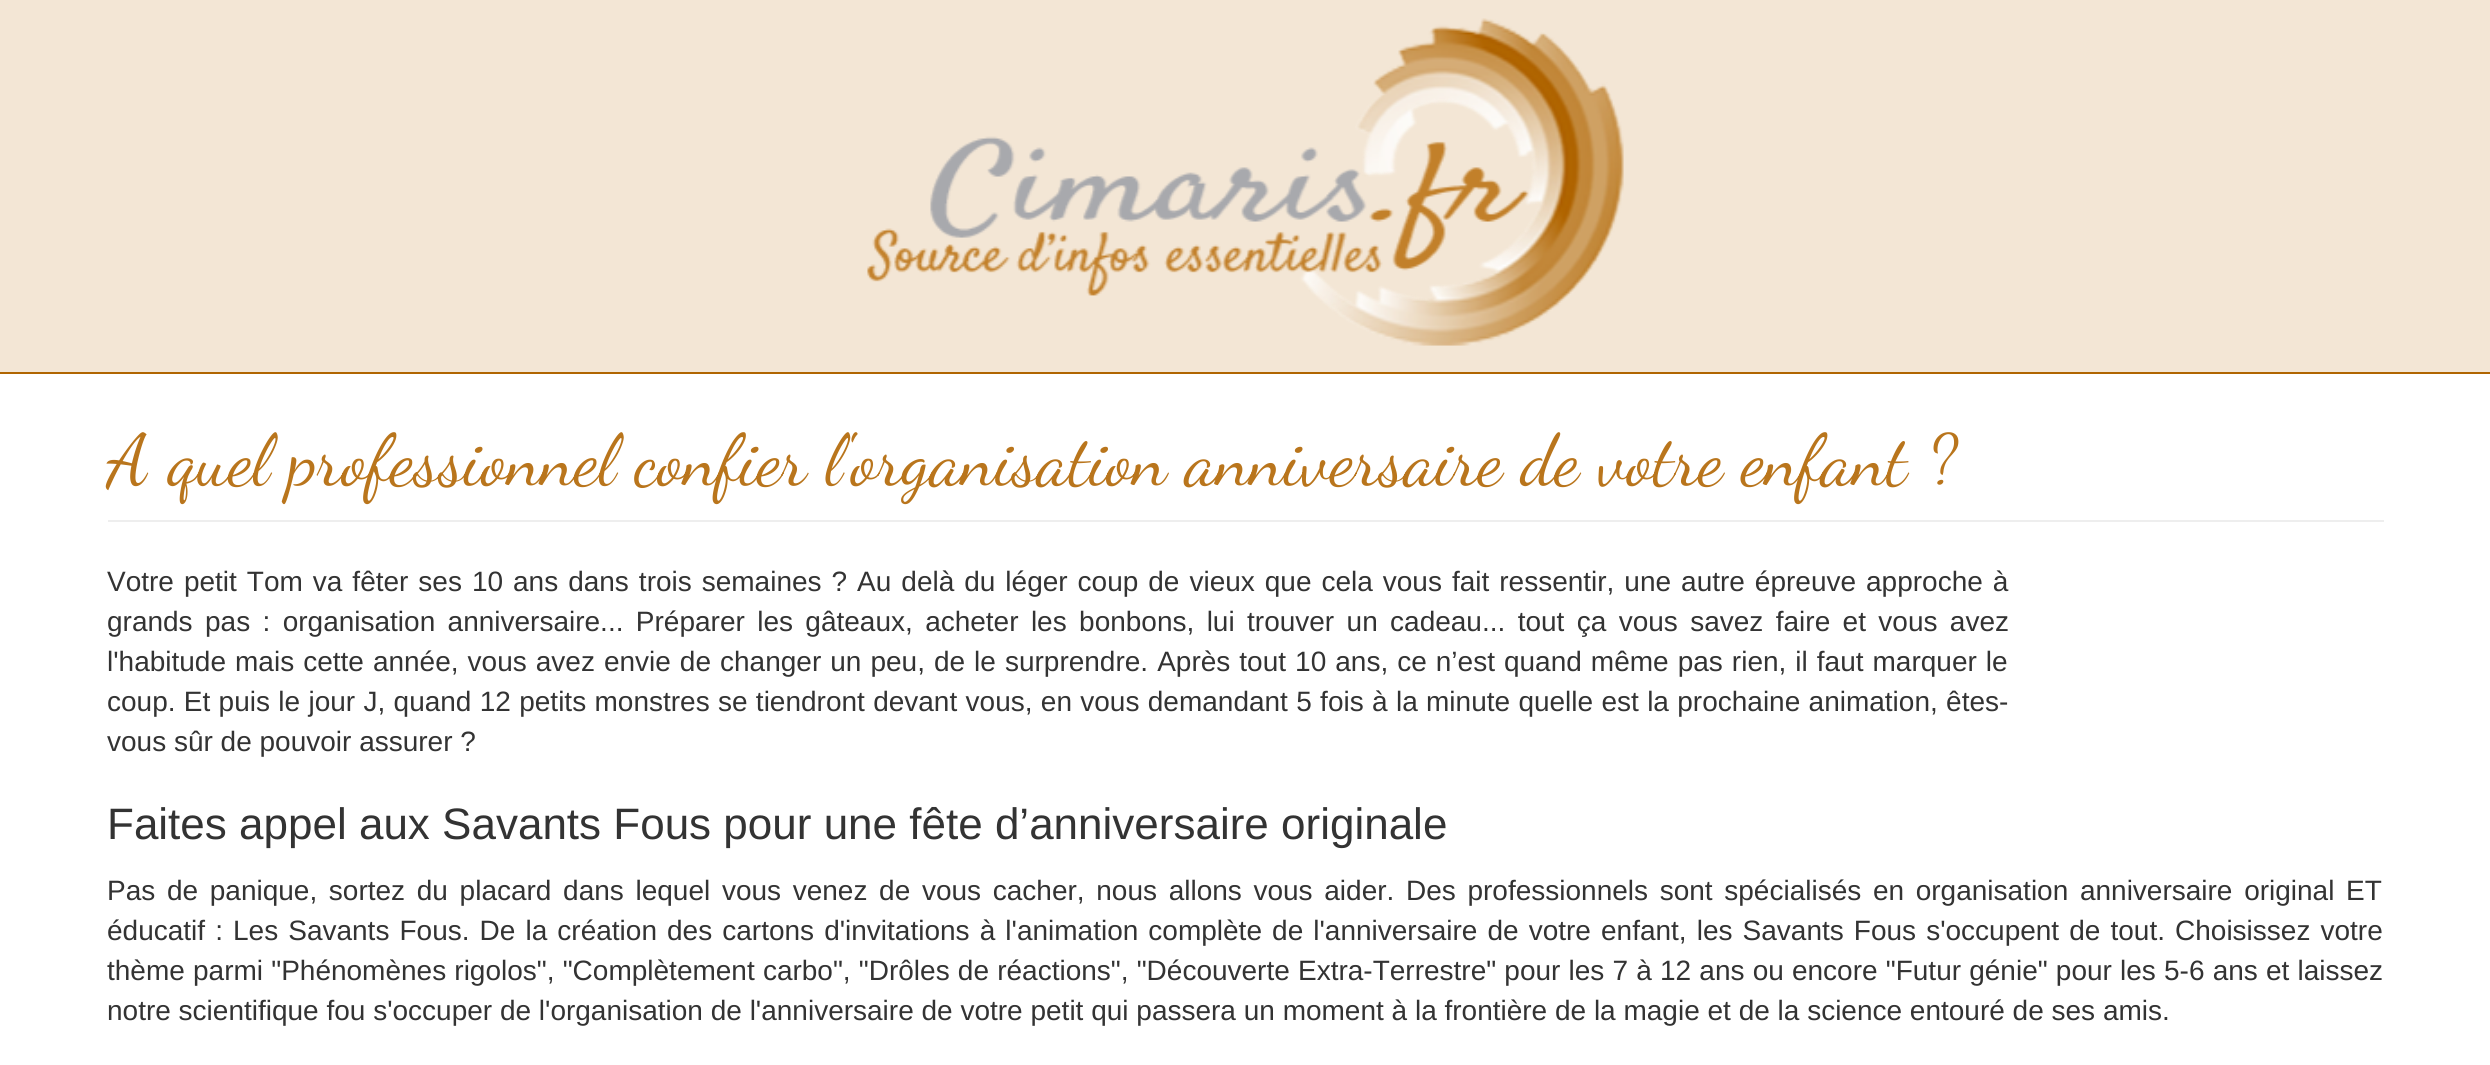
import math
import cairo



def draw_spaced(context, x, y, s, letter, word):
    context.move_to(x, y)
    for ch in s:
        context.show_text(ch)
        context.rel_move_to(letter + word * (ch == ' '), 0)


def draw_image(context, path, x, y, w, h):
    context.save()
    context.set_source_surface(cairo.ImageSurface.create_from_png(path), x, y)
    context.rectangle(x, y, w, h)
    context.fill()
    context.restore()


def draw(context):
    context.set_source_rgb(1, 1, 1)
    context.paint()
    context.set_source_rgb(243 / 255, 230 / 255, 213 / 255)
    context.rectangle(0, 0, 2490, 372)
    context.fill()
    context.set_source_rgb(176 / 255, 101 / 255, 0)
    context.rectangle(0, 372, 2490, 2)
    context.fill()
    draw_image(context, "images/1.png", 867, 18, 757, 328)
    context.set_source_rgb(238 / 255, 238 / 255, 238 / 255)
    context.rectangle(108, 520, 2276, 2)
    context.fill()
    context.select_font_face("Dancing Script")
    context.set_font_size(72)
    context.set_source_rgb(185 / 255, 117 / 255, 28 / 255)
    context.move_to(107, 484)
    context.show_text("A quel professionnel confier l'organisation anniversaire de votre enfant ?")
    context.select_font_face("Liberation Sans")
    context.set_font_size(28)
    context.set_source_rgb(51 / 255, 51 / 255, 51 / 255)
    draw_spaced(context, 107, 591, "Votre petit Tom va fêter ses 10 ans dans trois semaines ? Au delà du léger coup de vieux que cela vous fait ressentir, une autre épreuve approche à", 0, 2.2)
    draw_spaced(context, 107, 631, "grands pas : organisation anniversaire... Préparer les gâteaux, acheter les bonbons, lui trouver un cadeau... tout ça vous savez faire et vous avez", 0, 4.6)
    draw_spaced(context, 107, 671, "l'habitude mais cette année, vous avez envie de changer un peu, de le surprendre. Après tout 10 ans, ce n’est quand même pas rien, il faut marquer le", 0, 1.25)
    draw_spaced(context, 107, 711, "coup. Et puis le jour J, quand 12 petits monstres se tiendront devant vous, en vous demandant 5 fois à la minute quelle est la prochaine animation, êtes-", 0, 0.55)
    context.move_to(107, 751)
    context.show_text("vous sûr de pouvoir assurer ?")
    context.set_font_size(44)
    context.move_to(107, 839)
    context.show_text("Faites appel aux Savants Fous pour une fête d’anniversaire originale")
    context.set_font_size(28)
    draw_spaced(context, 107, 900, "Pas de panique, sortez du placard dans lequel vous venez de vous cacher, nous allons vous aider. Des professionnels sont spécialisés en organisation anniversaire original ET", 0, 3.9)
    draw_spaced(context, 107, 940, "éducatif : Les Savants Fous. De la création des cartons d'invitations à l'animation complète de l'anniversaire de votre enfant, les Savants Fous s'occupent de tout. Choisissez votre", 0, 2.3)
    draw_spaced(context, 107, 980, "thème parmi \"Phénomènes rigolos\", \"Complètement carbo\", \"Drôles de réactions\", \"Découverte Extra-Terrestre\" pour les 7 à 12 ans ou encore \"Futur génie\" pour les 5-6 ans et laissez", 0, 0.4)
    context.move_to(107, 1020)
    context.show_text("notre scientifique fou s'occuper de l'organisation de l'anniversaire de votre petit qui passera un moment à la frontière de la magie et de la science entouré de ses amis.")


surface = cairo.ImageSurface(cairo.Format.RGB24, 2490, 1065)
context = cairo.Context(surface)
options = cairo.FontOptions()
options.set_hint_metrics(cairo.HintMetrics.OFF)
options.set_hint_style(cairo.HintStyle.NONE)
context.set_font_options(options)
context.set_miter_limit(4)
draw(context)
surface.write_to_png("out.png")
